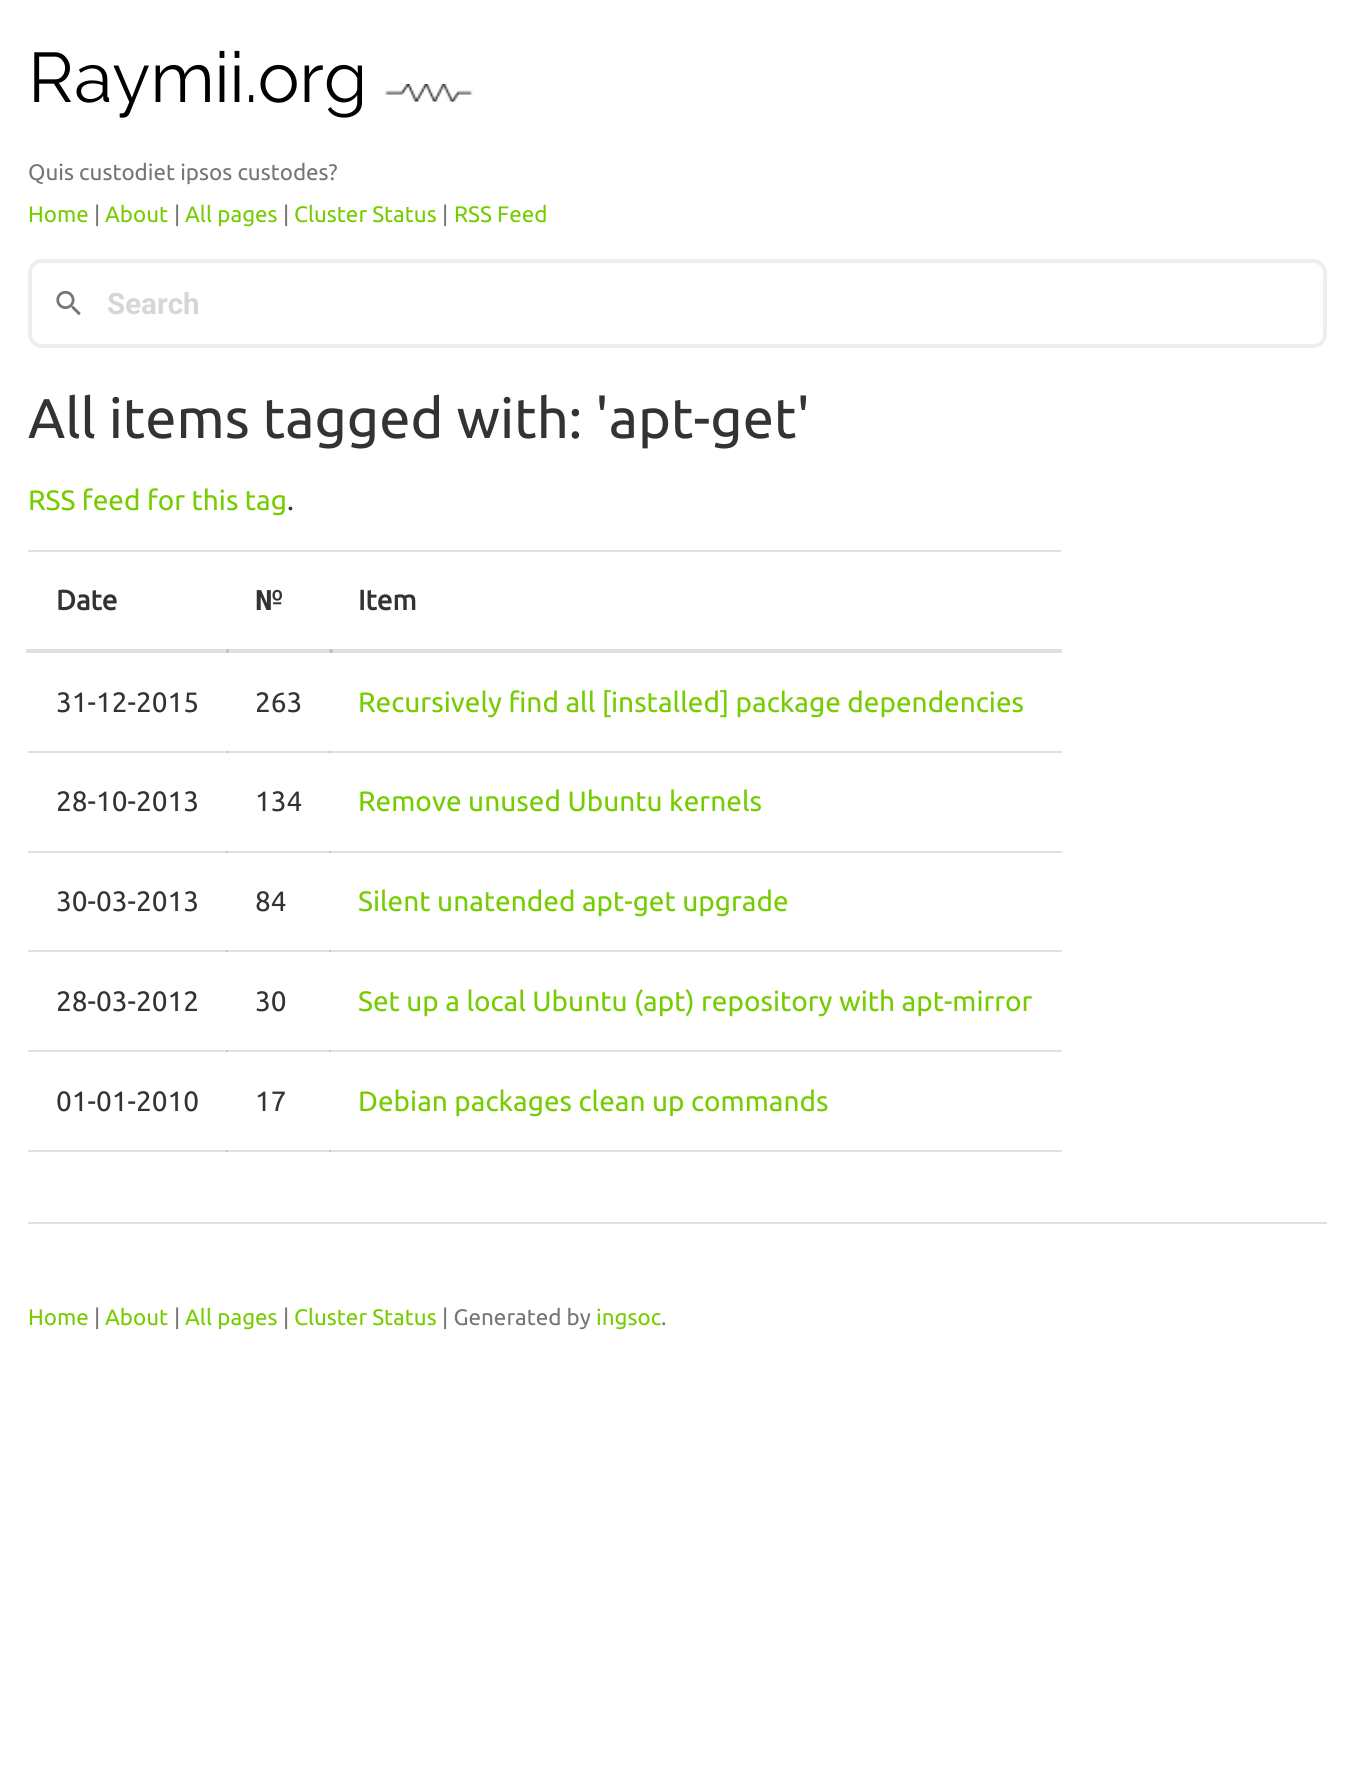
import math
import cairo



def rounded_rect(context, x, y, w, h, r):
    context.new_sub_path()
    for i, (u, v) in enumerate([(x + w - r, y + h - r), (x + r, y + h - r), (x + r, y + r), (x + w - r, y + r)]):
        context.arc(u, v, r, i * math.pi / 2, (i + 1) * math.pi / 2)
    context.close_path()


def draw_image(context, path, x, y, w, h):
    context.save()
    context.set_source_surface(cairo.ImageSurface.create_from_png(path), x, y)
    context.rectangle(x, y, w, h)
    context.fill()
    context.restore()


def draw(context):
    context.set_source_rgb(1, 1, 1)
    context.paint()
    context.set_source_rgb(224 / 255, 224 / 255, 224 / 255)
    context.rectangle(26, 649, 1036, 4)
    context.fill()
    context.set_source_rgb(197 / 255, 197 / 255, 197 / 255)
    context.rectangle(226, 649, 3, 4)
    context.fill()
    context.set_source_rgb(224 / 255, 224 / 255, 224 / 255)
    context.rectangle(28, 751, 1034, 2)
    context.fill()
    context.set_source_rgb(197 / 255, 197 / 255, 197 / 255)
    context.rectangle(226, 751, 2, 2)
    context.fill()
    context.set_source_rgb(224 / 255, 224 / 255, 224 / 255)
    context.rectangle(28, 851, 1034, 2)
    context.fill()
    context.set_source_rgb(197 / 255, 197 / 255, 197 / 255)
    context.rectangle(226, 851, 2, 2)
    context.fill()
    context.set_source_rgb(224 / 255, 224 / 255, 224 / 255)
    context.rectangle(28, 950, 1034, 2)
    context.fill()
    context.set_source_rgb(197 / 255, 197 / 255, 197 / 255)
    context.rectangle(226, 950, 2, 2)
    context.fill()
    context.set_source_rgb(224 / 255, 224 / 255, 224 / 255)
    context.rectangle(28, 1050, 1034, 2)
    context.fill()
    context.set_source_rgb(197 / 255, 197 / 255, 197 / 255)
    context.rectangle(226, 1050, 2, 2)
    context.fill()
    context.set_source_rgb(224 / 255, 224 / 255, 224 / 255)
    context.rectangle(28, 1150, 1034, 2)
    context.fill()
    context.set_source_rgb(197 / 255, 197 / 255, 197 / 255)
    context.rectangle(226, 1150, 2, 2)
    context.fill()
    draw_image(context, "images/1.png", 385, 84, 88, 18)
    rounded_rect(context, 30, 261, 1295, 85, 12)
    context.set_source_rgb(238 / 255, 238 / 255, 238 / 255)
    context.set_line_width(4)
    context.stroke()
    draw_image(context, "images/2.png", 56, 291, 25, 25)
    context.set_source_rgb(224 / 255, 224 / 255, 224 / 255)
    context.rectangle(28, 550, 1033, 2)
    context.fill()
    context.set_source_rgb(197 / 255, 197 / 255, 197 / 255)
    context.rectangle(329, 649, 4, 4)
    context.fill()
    context.rectangle(329, 751, 2, 2)
    context.fill()
    context.rectangle(329, 851, 2, 2)
    context.fill()
    context.rectangle(329, 950, 2, 2)
    context.fill()
    context.rectangle(329, 1050, 2, 2)
    context.fill()
    context.rectangle(329, 1150, 2, 2)
    context.fill()
    context.set_source_rgb(224 / 255, 224 / 255, 224 / 255)
    context.rectangle(28, 1222, 1299, 2)
    context.fill()
    context.select_font_face("Raleway")
    context.set_font_size(70)
    context.set_source_rgb(0, 0, 0)
    context.move_to(28, 102)
    context.show_text("Raymii.org")
    context.select_font_face("Ubuntu")
    context.set_font_size(22.4)
    context.set_source_rgb(117 / 255, 117 / 255, 117 / 255)
    context.move_to(28, 180)
    context.show_text("Quis custodiet ipsos custodes?")
    context.set_source_rgb(117 / 255, 204 / 255, 0)
    context.move_to(28, 222)
    context.show_text("Home")
    context.set_source_rgb(117 / 255, 117 / 255, 117 / 255)
    context.move_to(94, 222)
    context.show_text("|")
    context.set_source_rgb(117 / 255, 204 / 255, 0)
    context.move_to(105, 222)
    context.show_text("About")
    context.set_source_rgb(117 / 255, 117 / 255, 117 / 255)
    context.move_to(174, 222)
    context.show_text("|")
    context.set_source_rgb(117 / 255, 204 / 255, 0)
    context.move_to(185, 222)
    context.show_text("All pages")
    context.set_source_rgb(117 / 255, 117 / 255, 117 / 255)
    context.move_to(283, 222)
    context.show_text("|")
    context.set_source_rgb(117 / 255, 204 / 255, 0)
    context.move_to(294, 222)
    context.show_text("Cluster Status")
    context.set_source_rgb(117 / 255, 117 / 255, 117 / 255)
    context.move_to(442, 222)
    context.show_text("|")
    context.set_source_rgb(117 / 255, 204 / 255, 0)
    context.move_to(454, 222)
    context.show_text("RSS Feed")
    context.select_font_face("Roboto", cairo.FontSlant.NORMAL, cairo.FontWeight.BOLD)
    context.set_font_size(29.5)
    context.set_source_rgb(214 / 255, 214 / 255, 214 / 255)
    context.move_to(107, 314)
    context.show_text("Search")
    context.select_font_face("Ubuntu")
    context.set_font_size(56)
    context.set_source_rgb(51 / 255, 51 / 255, 51 / 255)
    context.move_to(28, 438)
    context.show_text("All items tagged with: 'apt-get'")
    context.set_font_size(28)
    context.set_source_rgb(117 / 255, 204 / 255, 0)
    context.move_to(28, 510)
    context.show_text("RSS feed for this tag")
    context.set_source_rgb(51 / 255, 51 / 255, 51 / 255)
    context.move_to(287, 510)
    context.show_text(".")
    context.select_font_face("Ubuntu", cairo.FontSlant.NORMAL, cairo.FontWeight.BOLD)
    context.move_to(56, 610)
    context.show_text("Date")
    context.select_font_face("Roboto", cairo.FontSlant.NORMAL, cairo.FontWeight.BOLD)
    context.move_to(255, 610)
    context.show_text("№")
    context.select_font_face("Ubuntu", cairo.FontSlant.NORMAL, cairo.FontWeight.BOLD)
    context.move_to(358, 610)
    context.show_text("Item")
    context.select_font_face("Ubuntu")
    context.move_to(56, 712)
    context.show_text("31-12-2015")
    context.move_to(255, 712)
    context.show_text("263")
    context.set_source_rgb(117 / 255, 204 / 255, 0)
    context.move_to(358, 712)
    context.show_text("Recursively find all [installed] package dependencies")
    context.set_source_rgb(51 / 255, 51 / 255, 51 / 255)
    context.move_to(56, 811)
    context.show_text("28-10-2013")
    context.move_to(255, 811)
    context.show_text("134")
    context.set_source_rgb(117 / 255, 204 / 255, 0)
    context.move_to(358, 811)
    context.show_text("Remove unused Ubuntu kernels")
    context.set_source_rgb(51 / 255, 51 / 255, 51 / 255)
    context.move_to(56, 911)
    context.show_text("30-03-2013")
    context.move_to(255, 911)
    context.show_text("84")
    context.set_source_rgb(117 / 255, 204 / 255, 0)
    context.move_to(358, 911)
    context.show_text("Silent unatended apt-get upgrade")
    context.set_source_rgb(51 / 255, 51 / 255, 51 / 255)
    context.move_to(56, 1011)
    context.show_text("28-03-2012")
    context.move_to(255, 1011)
    context.show_text("30")
    context.set_source_rgb(117 / 255, 204 / 255, 0)
    context.move_to(358, 1011)
    context.show_text("Set up a local Ubuntu (apt) repository with apt-mirror")
    context.set_source_rgb(51 / 255, 51 / 255, 51 / 255)
    context.move_to(56, 1111)
    context.show_text("01-01-2010")
    context.move_to(255, 1111)
    context.show_text("17")
    context.set_source_rgb(117 / 255, 204 / 255, 0)
    context.move_to(358, 1111)
    context.show_text("Debian packages clean up commands")
    context.set_font_size(22.4)
    context.move_to(28, 1325)
    context.show_text("Home")
    context.set_source_rgb(117 / 255, 117 / 255, 117 / 255)
    context.move_to(94, 1325)
    context.show_text("|")
    context.set_source_rgb(117 / 255, 204 / 255, 0)
    context.move_to(105, 1325)
    context.show_text("About")
    context.set_source_rgb(117 / 255, 117 / 255, 117 / 255)
    context.move_to(174, 1325)
    context.show_text("|")
    context.set_source_rgb(117 / 255, 204 / 255, 0)
    context.move_to(185, 1325)
    context.show_text("All pages")
    context.set_source_rgb(117 / 255, 117 / 255, 117 / 255)
    context.move_to(283, 1325)
    context.show_text("|")
    context.set_source_rgb(117 / 255, 204 / 255, 0)
    context.move_to(294, 1325)
    context.show_text("Cluster Status")
    context.set_source_rgb(117 / 255, 117 / 255, 117 / 255)
    context.move_to(442, 1325)
    context.show_text("| Generated by")
    context.set_source_rgb(117 / 255, 204 / 255, 0)
    context.move_to(596, 1325)
    context.show_text("ingsoc")
    context.set_source_rgb(117 / 255, 117 / 255, 117 / 255)
    context.move_to(661, 1325)
    context.show_text(".")


surface = cairo.ImageSurface(cairo.Format.RGB24, 1354, 1768)
context = cairo.Context(surface)
options = cairo.FontOptions()
options.set_hint_metrics(cairo.HintMetrics.OFF)
options.set_hint_style(cairo.HintStyle.NONE)
context.set_font_options(options)
context.set_miter_limit(4)
draw(context)
surface.write_to_png("out.png")
